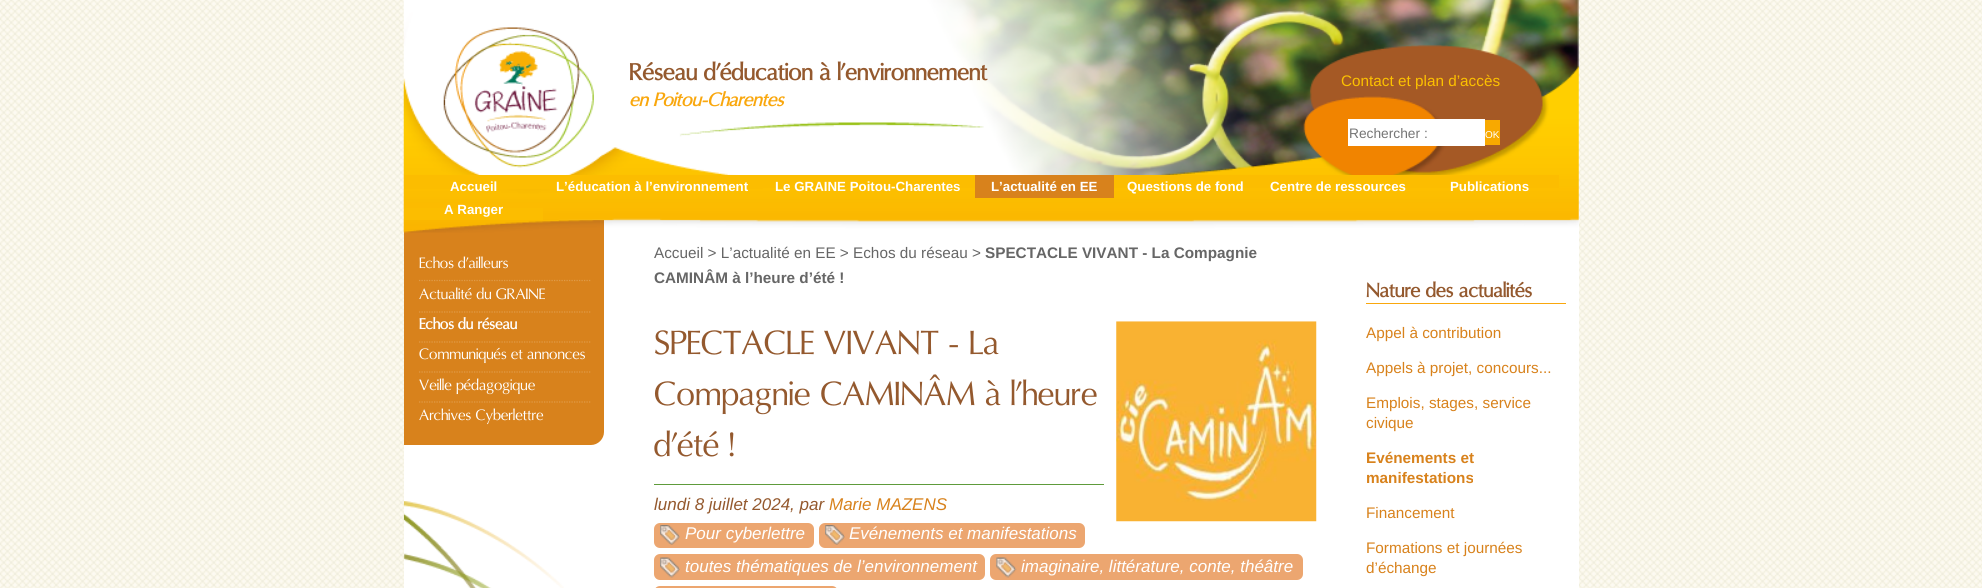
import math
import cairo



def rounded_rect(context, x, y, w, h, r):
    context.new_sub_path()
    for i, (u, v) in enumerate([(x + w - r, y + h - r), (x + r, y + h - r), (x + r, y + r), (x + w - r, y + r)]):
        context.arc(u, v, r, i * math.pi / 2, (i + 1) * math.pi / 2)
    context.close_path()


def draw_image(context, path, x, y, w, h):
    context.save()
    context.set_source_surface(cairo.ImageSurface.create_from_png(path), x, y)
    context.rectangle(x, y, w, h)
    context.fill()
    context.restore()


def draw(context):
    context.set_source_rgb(1, 1, 1)
    context.paint()
    draw_image(context, "images/1.png", 0, 0, 1982, 588)
    context.set_source_rgb(1, 1, 1)
    context.rectangle(404, 208, 1175, 380)
    context.fill()
    context.set_source_rgb(216 / 255, 130 / 255, 28 / 255)
    context.new_path()
    context.move_to(404, 220)
    context.line_to(604, 220)
    context.line_to(604, 432)
    context.curve_to(604, 439, 598, 445, 591, 445)
    context.line_to(404, 445)
    context.close_path()
    context.fill()
    draw_image(context, "images/2.png", 403, 0, 1176, 233)
    draw_image(context, "images/3.png", 443, 27, 151, 141)
    context.set_source_rgb(1, 1, 1)
    context.rectangle(1348, 119, 137, 27)
    context.fill()
    context.set_source_rgb(248 / 255, 169 / 255, 0)
    context.rectangle(1485, 120, 15, 25)
    context.fill()
    context.set_source_rgb(252 / 255, 189 / 255, 0)
    context.rectangle(404, 175, 359, 14)
    context.fill()
    context.rectangle(763, 175, 212, 13)
    context.fill()
    context.set_source_rgb(216 / 255, 130 / 255, 28 / 255)
    context.rectangle(975, 175, 139, 23)
    context.fill()
    context.set_source_rgb(252 / 255, 189 / 255, 0)
    context.rectangle(1114, 175, 445, 13)
    context.fill()
    context.rectangle(404, 208, 139, 12)
    context.fill()
    draw_image(context, "images/4.png", 403, 501, 161, 87)
    context.new_path()
    context.move_to(419, 280.5)
    context.line_to(591, 280.5)
    context.set_source_rgb(223 / 255, 155 / 255, 73 / 255)
    context.set_line_width(1.2)
    context.set_dash([1.25, 1.25])
    context.stroke()
    context.new_path()
    context.move_to(419, 312)
    context.line_to(591, 312)
    context.stroke()
    context.new_path()
    context.move_to(419, 342)
    context.line_to(591, 342)
    context.stroke()
    context.new_path()
    context.move_to(419, 372)
    context.line_to(591, 372)
    context.stroke()
    context.new_path()
    context.move_to(419, 402)
    context.line_to(591, 402)
    context.stroke()
    draw_image(context, "images/5.png", 1116, 321, 201, 201)
    context.set_source_rgb(94 / 255, 155 / 255, 59 / 255)
    context.rectangle(654, 484, 450, 1)
    context.fill()
    context.set_source_rgb(236 / 255, 166 / 255, 112 / 255)
    rounded_rect(context, 654, 523, 160, 25, 6)
    context.fill()
    draw_image(context, "images/6.png", 660, 525, 20, 20)
    rounded_rect(context, 819, 523, 266, 25, 6)
    context.fill()
    draw_image(context, "images/7.png", 825, 525, 20, 20)
    rounded_rect(context, 654, 554, 331, 26, 6)
    context.fill()
    draw_image(context, "images/8.png", 660, 557, 20, 21)
    rounded_rect(context, 990, 554, 313, 26, 6)
    context.fill()
    draw_image(context, "images/9.png", 996, 557, 21, 21)
    rounded_rect(context, 654, 586, 184, 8, 6)
    context.fill()
    context.set_source_rgb(249 / 255, 167 / 255, 13 / 255)
    context.rectangle(1366, 303, 200, 1)
    context.fill()
    context.select_font_face("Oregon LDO", cairo.FontSlant.NORMAL, cairo.FontWeight.BOLD)
    context.set_font_size(23.75)
    context.set_source_rgb(148 / 255, 89 / 255, 46 / 255)
    context.move_to(629, 80)
    context.show_text("Réseau d’éducation à l’environnement")
    context.select_font_face("Oregon LDO", cairo.FontSlant.ITALIC, cairo.FontWeight.BOLD)
    context.set_font_size(19)
    context.set_source_rgb(249 / 255, 167 / 255, 13 / 255)
    context.move_to(629, 106)
    context.show_text("en Poitou-Charentes")
    context.select_font_face("Liberation Sans")
    context.set_font_size(15.3)
    context.set_source_rgb(252 / 255, 193 / 255, 0)
    context.move_to(1341, 86)
    context.show_text("Contact et plan d’accès")
    context.set_font_size(13.75)
    context.set_source_rgb(117 / 255, 117 / 255, 117 / 255)
    context.move_to(1349, 138)
    context.show_text("Rechercher :")
    context.set_font_size(10)
    context.set_source_rgb(1, 1, 1)
    context.move_to(1485, 138)
    context.show_text("OK")
    context.select_font_face("Liberation Sans", cairo.FontSlant.NORMAL, cairo.FontWeight.BOLD)
    context.set_font_size(13.3)
    context.move_to(450, 191)
    context.show_text("Accueil")
    context.move_to(556, 191)
    context.show_text("L’éducation à l’environnement")
    context.move_to(775, 191)
    context.show_text("Le GRAINE Poitou-Charentes")
    context.move_to(991, 191)
    context.show_text("L’actualité en EE")
    context.move_to(1127, 191)
    context.show_text("Questions de fond")
    context.move_to(1270, 191)
    context.show_text("Centre de ressources")
    context.move_to(1450, 191)
    context.show_text("Publications")
    context.move_to(444, 214)
    context.show_text("A Ranger")
    context.select_font_face("Oregon LDO")
    context.set_font_size(15.3)
    context.move_to(419, 268)
    context.show_text("Echos d’ailleurs")
    context.move_to(419, 299)
    context.show_text("Actualité du GRAINE")
    context.select_font_face("Oregon LDO", cairo.FontSlant.NORMAL, cairo.FontWeight.BOLD)
    context.move_to(419, 329)
    context.show_text("Echos du réseau")
    context.select_font_face("Oregon LDO")
    context.move_to(419, 359)
    context.show_text("Communiqués et annonces")
    context.move_to(419, 390)
    context.show_text("Veille pédagogique")
    context.move_to(419, 420)
    context.show_text("Archives Cyberlettre")
    context.select_font_face("Liberation Sans")
    context.set_source_rgb(102 / 255, 102 / 255, 102 / 255)
    context.move_to(654, 258)
    context.show_text("Accueil > L’actualité en EE > Echos du réseau >")
    context.select_font_face("Liberation Sans", cairo.FontSlant.NORMAL, cairo.FontWeight.BOLD)
    context.move_to(985, 258)
    context.show_text("SPECTACLE VIVANT - La Compagnie")
    context.move_to(654, 283)
    context.show_text("CAMINÂM à l’heure d’été !")
    context.select_font_face("Oregon LDO")
    context.set_font_size(34)
    context.set_source_rgb(148 / 255, 89 / 255, 46 / 255)
    context.move_to(654, 354)
    context.show_text("SPECTACLE VIVANT - La")
    context.move_to(654, 405)
    context.show_text("Compagnie CAMINÂM à l’heure")
    context.move_to(654, 456)
    context.show_text("d’été !")
    context.select_font_face("Liberation Sans", cairo.FontSlant.ITALIC)
    context.set_font_size(17)
    context.move_to(654, 510)
    context.show_text("lundi 8 juillet 2024, par")
    context.set_source_rgb(216 / 255, 130 / 255, 28 / 255)
    context.move_to(829, 510)
    context.show_text("Marie MAZENS")
    context.set_source_rgb(1, 1, 1)
    context.move_to(685, 539)
    context.show_text("Pour cyberlettre")
    context.move_to(849, 539)
    context.show_text("Evénements et manifestations")
    context.move_to(685, 572)
    context.show_text("toutes thématiques de l’environnement")
    context.move_to(1021, 572)
    context.show_text("imaginaire, littérature, conte, théâtre")
    context.select_font_face("Oregon LDO", cairo.FontSlant.NORMAL, cairo.FontWeight.BOLD)
    context.set_font_size(20)
    context.set_source_rgb(148 / 255, 89 / 255, 46 / 255)
    context.move_to(1366, 297)
    context.show_text("Nature des actualités")
    context.select_font_face("Liberation Sans")
    context.set_font_size(15.3)
    context.set_source_rgb(216 / 255, 130 / 255, 28 / 255)
    context.move_to(1366, 338)
    context.show_text("Appel à contribution")
    context.move_to(1366, 373)
    context.show_text("Appels à projet, concours...")
    context.move_to(1366, 408)
    context.show_text("Emplois, stages, service")
    context.move_to(1366, 428)
    context.show_text("civique")
    context.select_font_face("Liberation Sans", cairo.FontSlant.NORMAL, cairo.FontWeight.BOLD)
    context.move_to(1366, 463)
    context.show_text("Evénements et")
    context.move_to(1366, 483)
    context.show_text("manifestations")
    context.select_font_face("Liberation Sans")
    context.move_to(1366, 518)
    context.show_text("Financement")
    context.move_to(1366, 553)
    context.show_text("Formations et journées")
    context.move_to(1366, 573)
    context.show_text("d’échange")


surface = cairo.ImageSurface(cairo.Format.RGB24, 1982, 588)
context = cairo.Context(surface)
options = cairo.FontOptions()
options.set_hint_metrics(cairo.HintMetrics.OFF)
options.set_hint_style(cairo.HintStyle.NONE)
context.set_font_options(options)
context.set_miter_limit(4)
draw(context)
surface.write_to_png("out.png")
